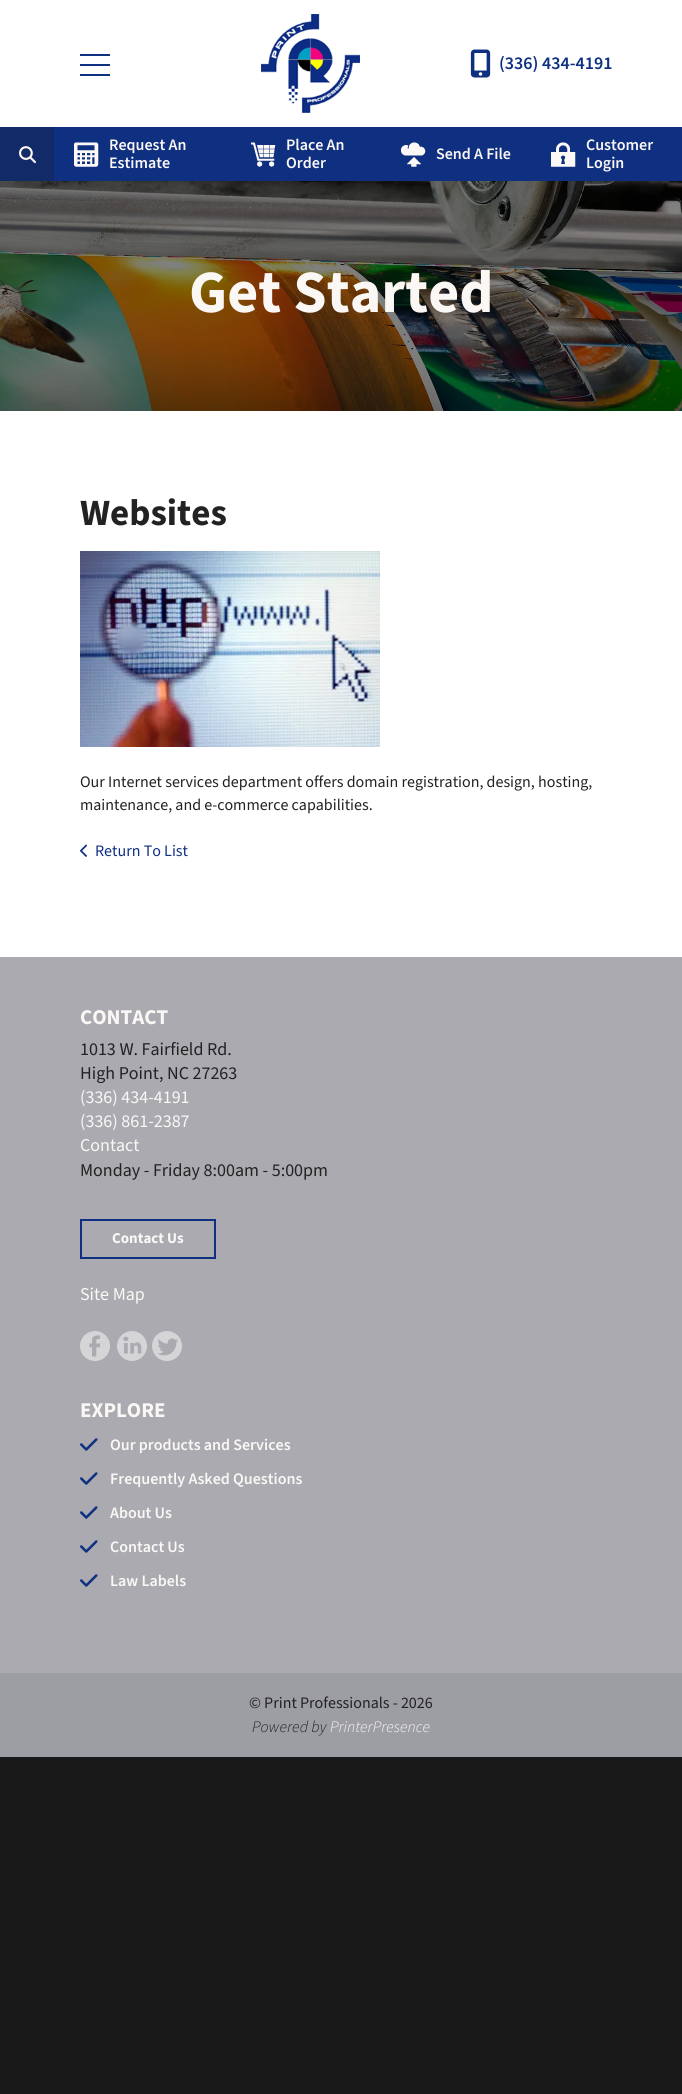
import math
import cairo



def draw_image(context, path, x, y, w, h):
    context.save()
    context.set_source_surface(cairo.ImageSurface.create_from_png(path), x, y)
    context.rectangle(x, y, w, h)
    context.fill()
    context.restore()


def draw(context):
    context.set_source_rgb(25 / 255, 24 / 255, 24 / 255)
    context.paint()
    context.set_source_rgb(1, 1, 1)
    context.rectangle(0, 0, 682, 127)
    context.fill()
    context.set_source_rgb(15 / 255, 48 / 255, 129 / 255)
    context.rectangle(80, 54, 30, 2)
    context.fill()
    context.rectangle(80, 64, 30, 2)
    context.fill()
    context.rectangle(80, 74, 30, 2)
    context.fill()
    draw_image(context, "images/1.png", 261, 14, 99, 99)
    draw_image(context, "images/2.png", 470, 49, 21, 29)
    context.set_source_rgb(18 / 255, 42 / 255, 103 / 255)
    context.rectangle(0, 127, 54, 54)
    context.fill()
    draw_image(context, "images/3.png", 19, 146, 17, 18)
    context.set_source_rgb(15 / 255, 48 / 255, 129 / 255)
    context.rectangle(54, 127, 628, 54)
    context.fill()
    draw_image(context, "images/4.png", 74, 142, 25, 25)
    draw_image(context, "images/5.png", 251, 142, 25, 25)
    draw_image(context, "images/6.png", 401, 142, 25, 25)
    draw_image(context, "images/7.png", 551, 142, 25, 25)
    draw_image(context, "images/8.png", 0, 181, 682, 230)
    context.set_source_rgb(1, 1, 1)
    context.rectangle(0, 411, 682, 546)
    context.fill()
    draw_image(context, "images/9.png", 80, 551, 300, 196)
    draw_image(context, "images/10.png", 80, 844, 7, 13)
    context.set_source_rgb(170 / 255, 170 / 255, 176 / 255)
    context.rectangle(0, 957, 682, 716)
    context.fill()
    context.rectangle(81, 1220, 134, 38)
    context.set_source_rgb(15 / 255, 48 / 255, 129 / 255)
    context.stroke()
    draw_image(context, "images/11.png", 80, 1331, 30, 30)
    draw_image(context, "images/12.png", 117, 1331, 30, 30)
    draw_image(context, "images/13.png", 152, 1331, 30, 30)
    draw_image(context, "images/14.png", 80, 1438, 18, 13)
    draw_image(context, "images/14.png", 80, 1472, 18, 13)
    draw_image(context, "images/14.png", 80, 1506, 18, 13)
    draw_image(context, "images/14.png", 80, 1540, 18, 13)
    draw_image(context, "images/14.png", 80, 1574, 18, 13)
    context.set_source_rgb(157 / 255, 157 / 255, 164 / 255)
    context.rectangle(0, 1673, 682, 84)
    context.fill()
    context.select_font_face("Source Sans 3 SemiBold")
    context.set_font_size(18)
    context.set_source_rgb(15 / 255, 48 / 255, 129 / 255)
    context.move_to(499, 69)
    context.show_text("(336) 434-4191")
    context.set_font_size(16)
    context.set_source_rgb(250 / 255, 247 / 255, 245 / 255)
    context.move_to(109, 150)
    context.show_text("Request An")
    context.move_to(109, 168)
    context.show_text("Estimate")
    context.move_to(286, 150)
    context.show_text("Place An")
    context.move_to(286, 168)
    context.show_text("Order")
    context.move_to(436, 159)
    context.show_text("Send A File")
    context.move_to(586, 150)
    context.show_text("Customer")
    context.move_to(586, 168)
    context.show_text("Login")
    context.select_font_face("Source Sans 3", cairo.FontSlant.NORMAL, cairo.FontWeight.BOLD)
    context.set_font_size(60)
    context.move_to(189, 312)
    context.show_text("Get Started")
    context.set_font_size(37)
    context.set_source_rgb(34 / 255, 34 / 255, 34 / 255)
    context.move_to(80, 525)
    context.show_text("Websites")
    context.select_font_face("Source Sans 3")
    context.set_font_size(16)
    context.move_to(80, 787)
    context.show_text("Our Internet services department offers domain registration, design, hosting,")
    context.move_to(80, 810)
    context.show_text("maintenance, and e-commerce capabilities.")
    context.set_source_rgb(15 / 255, 48 / 255, 129 / 255)
    context.move_to(95, 856)
    context.show_text("Return To List")
    context.select_font_face("Source Sans 3", cairo.FontSlant.NORMAL, cairo.FontWeight.BOLD)
    context.set_font_size(21)
    context.set_source_rgb(250 / 255, 247 / 255, 245 / 255)
    context.move_to(80, 1024)
    context.show_text("CONTACT")
    context.select_font_face("Source Sans 3")
    context.set_font_size(18)
    context.set_source_rgb(34 / 255, 34 / 255, 34 / 255)
    context.move_to(80, 1055)
    context.show_text("1013 W. Fairfield Rd.")
    context.move_to(80, 1079)
    context.show_text("High Point, NC 27263")
    context.set_source_rgb(250 / 255, 247 / 255, 245 / 255)
    context.move_to(80, 1103)
    context.show_text("(336) 434-4191")
    context.move_to(80, 1127)
    context.show_text("(336) 861-2387")
    context.move_to(80, 1151)
    context.show_text("Contact")
    context.set_source_rgb(34 / 255, 34 / 255, 34 / 255)
    context.move_to(80, 1176)
    context.show_text("Monday - Friday 8:00am - 5:00pm")
    context.select_font_face("Source Sans 3", cairo.FontSlant.NORMAL, cairo.FontWeight.BOLD)
    context.set_font_size(15)
    context.set_source_rgb(250 / 255, 247 / 255, 245 / 255)
    context.move_to(112, 1243)
    context.show_text("Contact Us")
    context.select_font_face("Source Sans 3")
    context.set_font_size(18)
    context.move_to(80, 1300)
    context.show_text("Site Map")
    context.select_font_face("Source Sans 3", cairo.FontSlant.NORMAL, cairo.FontWeight.BOLD)
    context.set_font_size(21)
    context.move_to(80, 1417)
    context.show_text("EXPLORE")
    context.select_font_face("Source Sans 3 SemiBold")
    context.set_font_size(16)
    context.move_to(110, 1450)
    context.show_text("Our products and Services")
    context.move_to(110, 1484)
    context.show_text("Frequently Asked Questions")
    context.move_to(110, 1518)
    context.show_text("About Us")
    context.move_to(110, 1552)
    context.show_text("Contact Us")
    context.move_to(110, 1586)
    context.show_text("Law Labels")
    context.select_font_face("Source Sans 3")
    context.set_source_rgb(34 / 255, 34 / 255, 34 / 255)
    context.move_to(249, 1708)
    context.show_text("© Print Professionals - 2026")
    context.select_font_face("Source Sans 3 Light", cairo.FontSlant.ITALIC)
    context.move_to(252, 1732)
    context.show_text("Powered by")
    context.set_source_rgb(250 / 255, 247 / 255, 245 / 255)
    context.move_to(330, 1732)
    context.show_text("PrinterPresence")


surface = cairo.ImageSurface(cairo.Format.RGB24, 682, 2094)
context = cairo.Context(surface)
options = cairo.FontOptions()
options.set_hint_metrics(cairo.HintMetrics.OFF)
options.set_hint_style(cairo.HintStyle.NONE)
context.set_font_options(options)
context.set_miter_limit(4)
draw(context)
surface.write_to_png("out.png")
